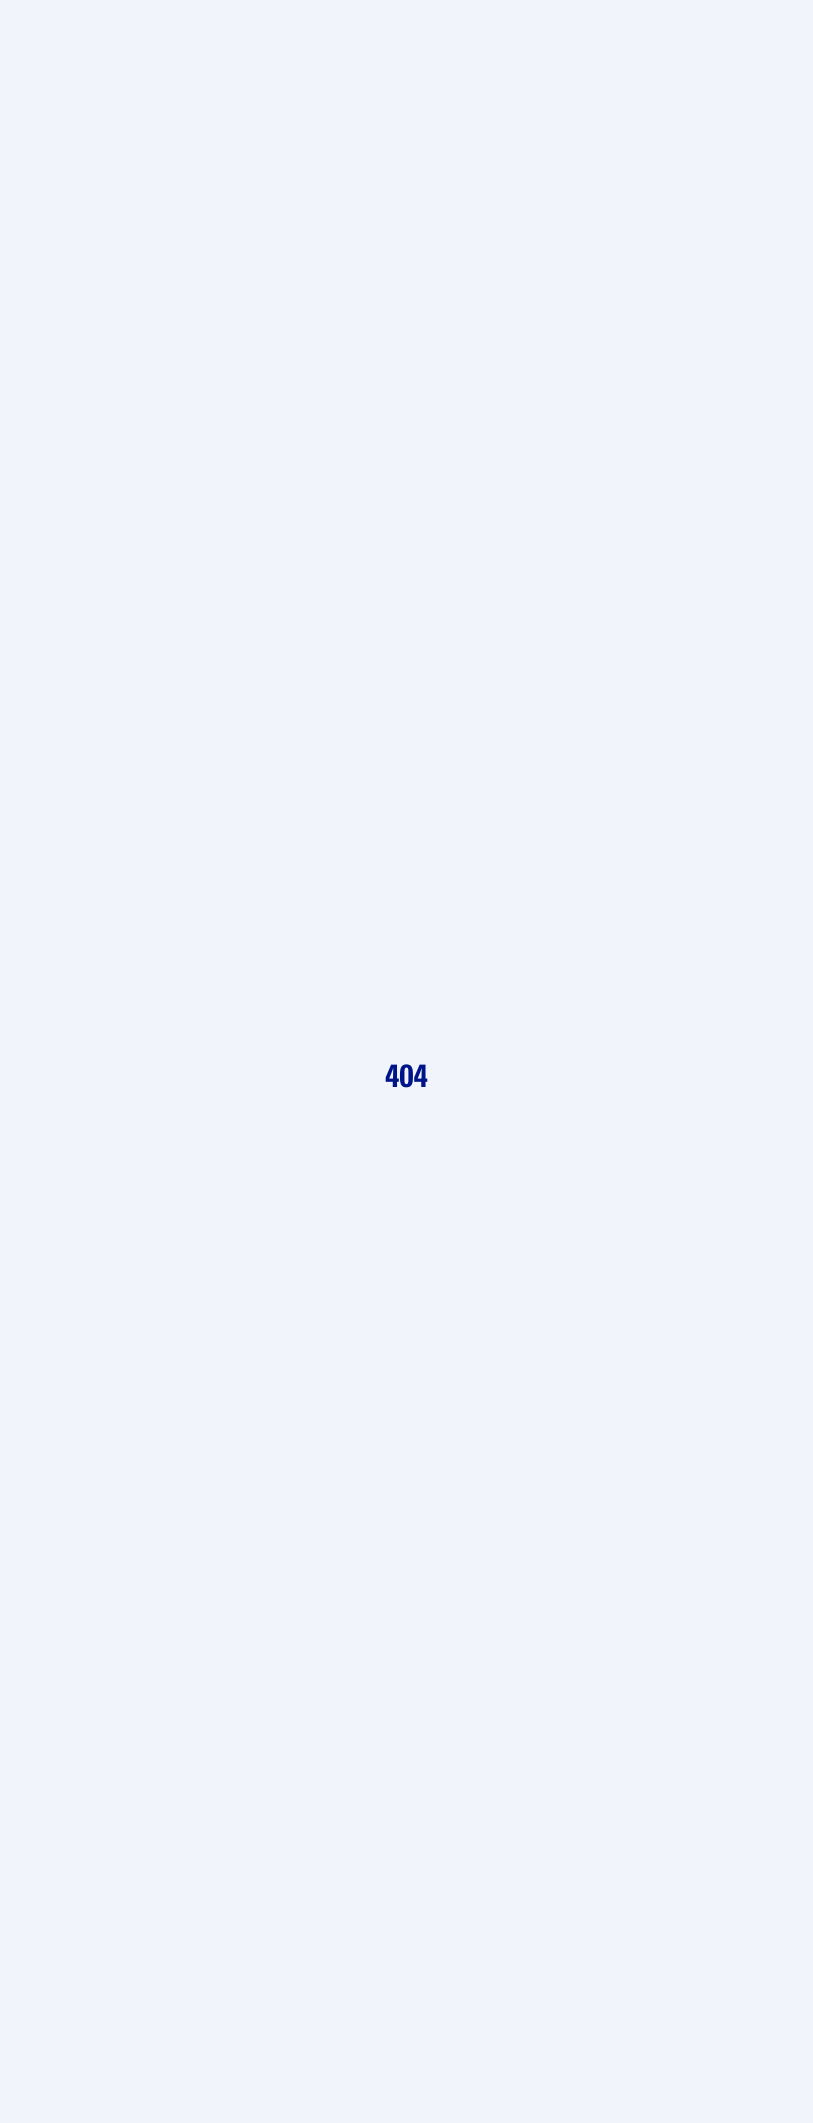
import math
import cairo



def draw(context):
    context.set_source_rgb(241 / 255, 244 / 255, 251 / 255)
    context.paint()
    context.select_font_face("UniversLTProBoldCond")
    context.set_font_size(32)
    context.set_source_rgb(0, 20 / 255, 137 / 255)
    context.move_to(385, 1087)
    context.show_text("404")


surface = cairo.ImageSurface(cairo.Format.RGB24, 813, 2123)
context = cairo.Context(surface)
options = cairo.FontOptions()
options.set_hint_metrics(cairo.HintMetrics.OFF)
options.set_hint_style(cairo.HintStyle.NONE)
context.set_font_options(options)
context.set_miter_limit(4)
draw(context)
surface.write_to_png("out.png")
